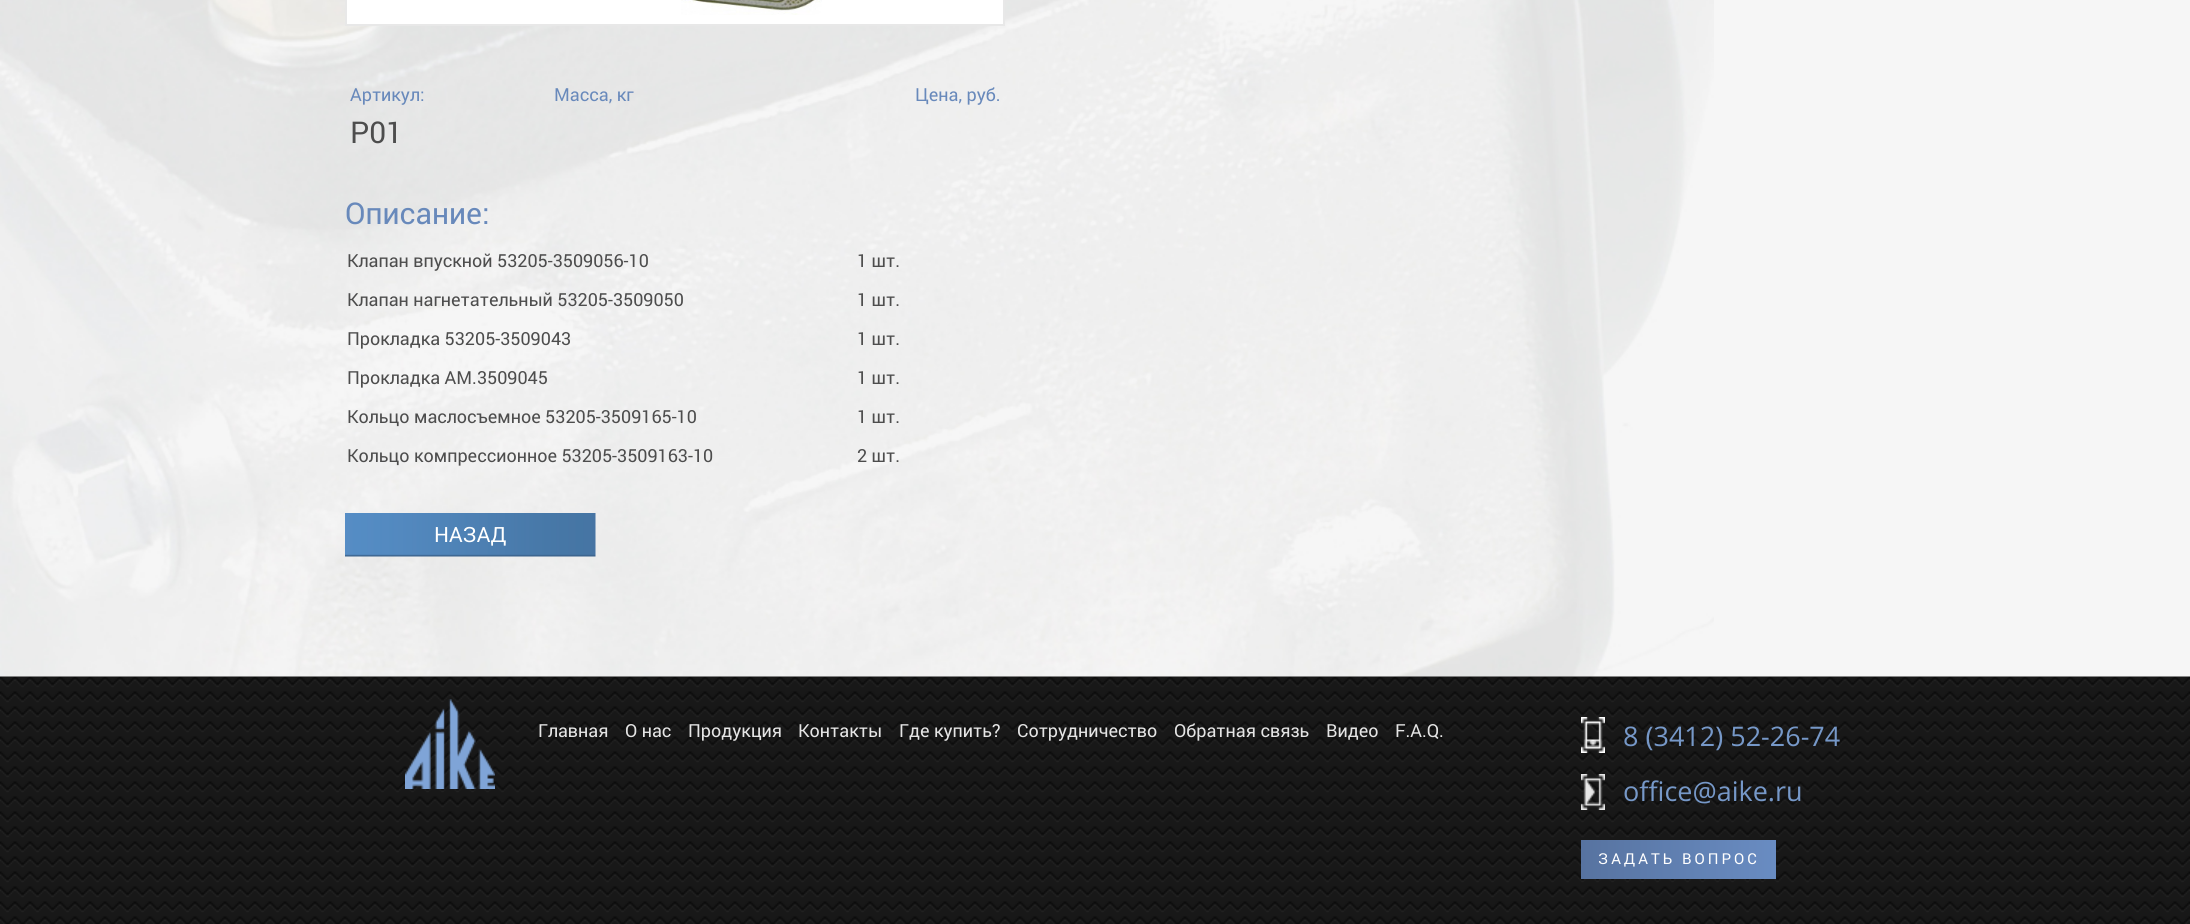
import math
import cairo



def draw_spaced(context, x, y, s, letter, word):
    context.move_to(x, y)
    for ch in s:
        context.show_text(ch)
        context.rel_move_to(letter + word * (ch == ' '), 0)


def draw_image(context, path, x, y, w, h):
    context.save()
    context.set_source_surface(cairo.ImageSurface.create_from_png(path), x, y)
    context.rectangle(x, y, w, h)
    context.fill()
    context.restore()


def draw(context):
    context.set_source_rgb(246 / 255, 246 / 255, 246 / 255)
    context.paint()
    draw_image(context, "images/1.png", 0, 0, 1714, 677)
    context.set_source_rgb(1, 1, 1)
    context.rectangle(347, 0, 656, 24)
    context.fill()
    draw_image(context, "images/2.png", 681, 0, 141, 15)
    context.rectangle(346, -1, 658, 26)
    context.set_source_rgb(232 / 255, 232 / 255, 232 / 255)
    context.stroke()
    draw_image(context, "images/3.png", 345, 513, 251, 44)
    draw_image(context, "images/4.png", 0, 676, 2190, 248)
    draw_image(context, "images/5.png", 405, 699, 90, 90)
    draw_image(context, "images/6.png", 1581, 717, 24, 36)
    draw_image(context, "images/7.png", 1581, 774, 24, 36)
    gradient = cairo.LinearGradient(1581, 860, 1776, 860)
    gradient.add_color_stop_rgba(0, 87 / 255, 115 / 255, 160 / 255, 1)
    gradient.add_color_stop_rgba(1, 105 / 255, 140 / 255, 194 / 255, 1)
    context.set_source(gradient)
    context.rectangle(1581, 840, 195, 39)
    context.fill()
    context.select_font_face("Roboto")
    context.set_font_size(18)
    context.set_source_rgb(104 / 255, 137 / 255, 187 / 255)
    context.move_to(350, 101)
    context.show_text("Артикул:")
    context.move_to(554, 101)
    context.show_text("Масса, кг")
    context.move_to(915, 101)
    context.show_text("Цена, руб.")
    context.set_font_size(30)
    context.set_source_rgb(77 / 255, 77 / 255, 77 / 255)
    context.move_to(350, 143)
    context.show_text("Р01")
    context.set_source_rgb(104 / 255, 137 / 255, 187 / 255)
    context.move_to(345, 224)
    context.show_text("Описание:")
    context.set_font_size(18)
    context.set_source_rgb(77 / 255, 77 / 255, 77 / 255)
    context.move_to(347, 267)
    context.show_text("Клапан впускной 53205-3509056-10")
    context.move_to(347, 306)
    context.show_text("Клапан нагнетательный 53205-3509050")
    context.move_to(347, 345)
    context.show_text("Прокладка 53205-3509043")
    context.move_to(347, 384)
    context.show_text("Прокладка АМ.3509045")
    context.move_to(347, 423)
    context.show_text("Кольцо маслосъемное 53205-3509165-10")
    context.move_to(347, 462)
    context.show_text("Кольцо компрессионное 53205-3509163-10")
    context.move_to(857, 267)
    context.show_text("1 шт.")
    context.move_to(857, 306)
    context.show_text("1 шт.")
    context.move_to(857, 345)
    context.show_text("1 шт.")
    context.move_to(857, 384)
    context.show_text("1 шт.")
    context.move_to(857, 423)
    context.show_text("1 шт.")
    context.move_to(857, 462)
    context.show_text("2 шт.")
    context.set_font_size(21)
    context.set_source_rgb(1, 1, 1)
    context.move_to(434, 542)
    context.show_text("НАЗАД")
    context.set_font_size(18)
    context.set_source_rgb(229 / 255, 229 / 255, 229 / 255)
    context.move_to(538, 737)
    context.show_text("Главная")
    context.move_to(625, 737)
    context.show_text("О нас")
    context.move_to(688, 737)
    context.show_text("Продукция")
    context.move_to(798, 737)
    context.show_text("Контакты")
    context.move_to(899, 737)
    context.show_text("Где купить?")
    context.move_to(1017, 737)
    context.show_text("Сотрудничество")
    context.move_to(1174, 737)
    context.show_text("Обратная связь")
    context.move_to(1326, 737)
    context.show_text("Видео")
    context.move_to(1395, 737)
    context.show_text("F.A.Q.")
    context.select_font_face("Open Sans")
    context.set_font_size(27)
    context.set_source_rgb(118 / 255, 152 / 255, 200 / 255)
    context.move_to(1623, 746)
    context.show_text("8 (3412) 52-26-74")
    context.move_to(1623, 801)
    context.show_text("office@aike.ru")
    context.select_font_face("Roboto")
    context.set_font_size(15)
    context.set_source_rgb(1, 1, 1)
    draw_spaced(context, 1598, 864, "ЗАДАТЬ ВОПРОС", 3, 0)


surface = cairo.ImageSurface(cairo.Format.RGB24, 2190, 924)
context = cairo.Context(surface)
options = cairo.FontOptions()
options.set_hint_metrics(cairo.HintMetrics.OFF)
options.set_hint_style(cairo.HintStyle.NONE)
context.set_font_options(options)
context.set_miter_limit(4)
draw(context)
surface.write_to_png("out.png")
